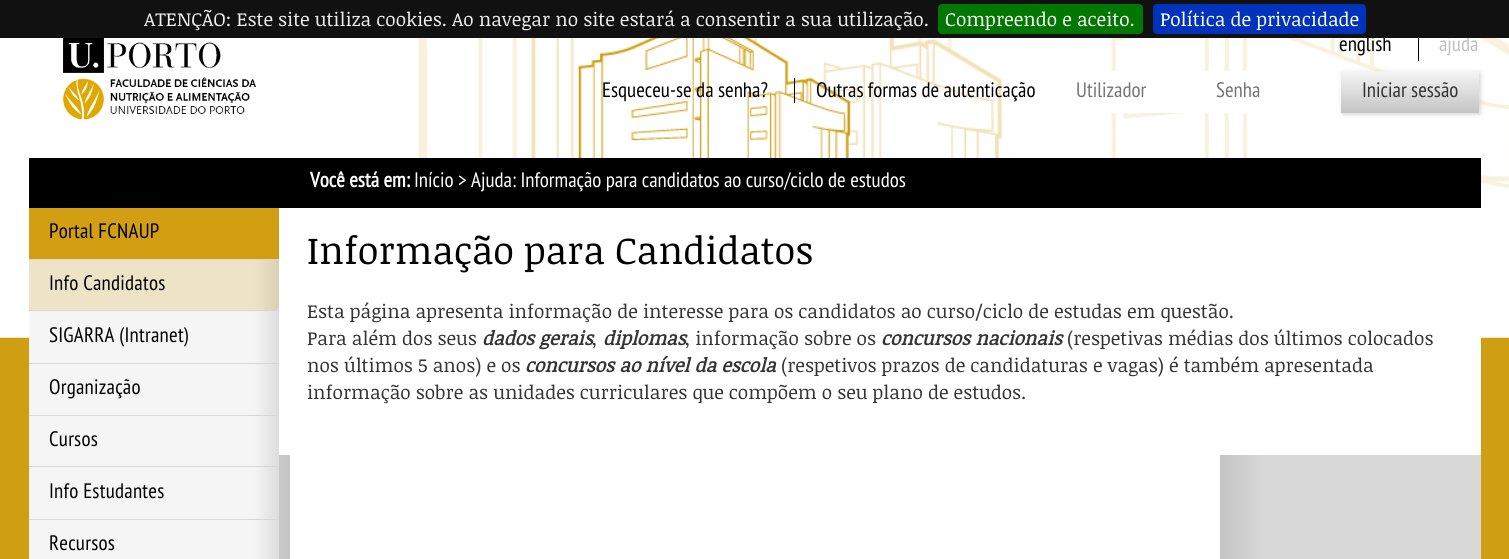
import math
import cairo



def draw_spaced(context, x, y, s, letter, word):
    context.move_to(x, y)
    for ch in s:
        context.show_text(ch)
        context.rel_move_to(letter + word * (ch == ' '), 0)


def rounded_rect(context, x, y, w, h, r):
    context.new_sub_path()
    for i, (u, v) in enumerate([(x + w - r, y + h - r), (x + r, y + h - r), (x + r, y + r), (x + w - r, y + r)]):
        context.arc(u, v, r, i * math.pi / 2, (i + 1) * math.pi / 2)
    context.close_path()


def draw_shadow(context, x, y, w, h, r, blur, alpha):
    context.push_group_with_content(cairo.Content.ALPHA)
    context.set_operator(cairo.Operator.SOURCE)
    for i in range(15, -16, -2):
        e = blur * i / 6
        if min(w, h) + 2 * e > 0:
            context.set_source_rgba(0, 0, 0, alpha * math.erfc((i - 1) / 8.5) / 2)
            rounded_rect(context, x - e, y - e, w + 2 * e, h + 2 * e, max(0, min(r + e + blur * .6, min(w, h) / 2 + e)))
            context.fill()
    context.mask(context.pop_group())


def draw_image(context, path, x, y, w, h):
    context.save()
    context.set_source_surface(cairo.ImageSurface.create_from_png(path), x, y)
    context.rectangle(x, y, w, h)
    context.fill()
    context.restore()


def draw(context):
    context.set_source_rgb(208 / 255, 158 / 255, 18 / 255)
    context.paint()
    draw_image(context, "images/1.png", 0, 38, 1509, 300)
    draw_image(context, "images/2.png", 63, 38, 194, 82)
    context.set_source_rgb(0, 0, 0)
    context.rectangle(1418, 31, 1, 30)
    context.fill()
    context.rectangle(794, 78, 1, 25)
    context.fill()
    context.set_source_rgb(1, 1, 1)
    context.rectangle(1111, 71, 81, 42)
    context.fill()
    context.rectangle(1204, 71, 44, 42)
    context.fill()
    context.set_source_rgb(204 / 255, 204 / 255, 204 / 255)
    draw_shadow(context, 1343, 73, 137, 41, 0, 2.5, 1)
    gradient = cairo.LinearGradient(1410, 71, 1410, 113)
    gradient.add_color_stop_rgba(0, 245 / 255, 245 / 255, 245 / 255, 1)
    gradient.add_color_stop_rgba(1, 196 / 255, 196 / 255, 196 / 255, 1)
    context.set_source(gradient)
    context.rectangle(1341, 71, 138, 42)
    context.fill()
    context.set_source_rgb(0, 0, 0)
    context.rectangle(29, 158, 1452, 50)
    context.fill()
    gradient = cairo.LinearGradient(1481, 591, 29, 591)
    gradient.add_color_stop_rgba(0, 216 / 255, 216 / 255, 216 / 255, 1)
    gradient.add_color_stop_rgba(0.15, 216 / 255, 216 / 255, 216 / 255, 1)
    gradient.add_color_stop_rgba(0.18, 196 / 255, 196 / 255, 196 / 255, 1)
    gradient.add_color_stop_rgba(0.18, 1, 1, 1, 1)
    gradient.add_color_stop_rgba(0.55, 1, 1, 1, 1)
    gradient.add_color_stop_rgba(0.55, 1, 1, 1, 0)
    gradient.add_color_stop_rgba(1, 1, 1, 1, 0)
    context.set_source(gradient)
    context.rectangle(828, 455, 653, 104)
    context.fill()
    gradient = cairo.LinearGradient(29, 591, 1481, 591)
    gradient.add_color_stop_rgba(0, 216 / 255, 216 / 255, 216 / 255, 1)
    gradient.add_color_stop_rgba(0.15, 216 / 255, 216 / 255, 216 / 255, 1)
    gradient.add_color_stop_rgba(0.18, 196 / 255, 196 / 255, 196 / 255, 1)
    gradient.add_color_stop_rgba(0.18, 1, 1, 1, 1)
    gradient.add_color_stop_rgba(0.55, 1, 1, 1, 1)
    gradient.add_color_stop_rgba(0.55, 1, 1, 1, 0)
    gradient.add_color_stop_rgba(1, 1, 1, 1, 0)
    context.set_source(gradient)
    context.rectangle(279, 455, 549, 104)
    context.fill()
    context.set_source_rgb(215 / 255, 215 / 255, 215 / 255)
    context.rectangle(29, 259, 250, 1)
    context.fill()
    context.set_source_rgb(210 / 255, 159 / 255, 19 / 255)
    context.rectangle(29, 208, 250, 51)
    context.fill()
    gradient = cairo.LinearGradient(29, 285, 279, 285)
    gradient.add_color_stop_rgba(0, 245 / 255, 245 / 255, 245 / 255, 1)
    gradient.add_color_stop_rgba(0.9, 245 / 255, 245 / 255, 245 / 255, 1)
    gradient.add_color_stop_rgba(1, 221 / 255, 221 / 255, 221 / 255, 1)
    context.set_source(gradient)
    context.rectangle(29, 260, 250, 50)
    context.fill()
    context.set_source_rgb(215 / 255, 215 / 255, 215 / 255)
    context.rectangle(29, 310, 250, 1)
    context.fill()
    context.set_source_rgba(209 / 255, 158 / 255, 18 / 255, 0.2)
    context.rectangle(29, 260, 250, 50)
    context.fill()
    gradient = cairo.LinearGradient(29, 337, 279, 337)
    gradient.add_color_stop_rgba(0, 245 / 255, 245 / 255, 245 / 255, 1)
    gradient.add_color_stop_rgba(0.9, 245 / 255, 245 / 255, 245 / 255, 1)
    gradient.add_color_stop_rgba(1, 221 / 255, 221 / 255, 221 / 255, 1)
    context.set_source(gradient)
    context.rectangle(29, 311, 250, 52)
    context.fill()
    context.set_source_rgb(215 / 255, 215 / 255, 215 / 255)
    context.rectangle(29, 363, 250, 1)
    context.fill()
    gradient = cairo.LinearGradient(29, 389, 279, 389)
    gradient.add_color_stop_rgba(0, 245 / 255, 245 / 255, 245 / 255, 1)
    gradient.add_color_stop_rgba(0.9, 245 / 255, 245 / 255, 245 / 255, 1)
    gradient.add_color_stop_rgba(1, 221 / 255, 221 / 255, 221 / 255, 1)
    context.set_source(gradient)
    context.rectangle(29, 364, 250, 51)
    context.fill()
    context.set_source_rgb(215 / 255, 215 / 255, 215 / 255)
    context.rectangle(29, 415, 250, 1)
    context.fill()
    gradient = cairo.LinearGradient(29, 441, 279, 441)
    gradient.add_color_stop_rgba(0, 245 / 255, 245 / 255, 245 / 255, 1)
    gradient.add_color_stop_rgba(0.9, 245 / 255, 245 / 255, 245 / 255, 1)
    gradient.add_color_stop_rgba(1, 221 / 255, 221 / 255, 221 / 255, 1)
    context.set_source(gradient)
    context.rectangle(29, 416, 250, 52)
    context.fill()
    context.set_source_rgb(215 / 255, 215 / 255, 215 / 255)
    context.rectangle(29, 466, 250, 1)
    context.fill()
    gradient = cairo.LinearGradient(29, 493, 279, 493)
    gradient.add_color_stop_rgba(0, 245 / 255, 245 / 255, 245 / 255, 1)
    gradient.add_color_stop_rgba(0.9, 245 / 255, 245 / 255, 245 / 255, 1)
    gradient.add_color_stop_rgba(1, 221 / 255, 221 / 255, 221 / 255, 1)
    context.set_source(gradient)
    context.rectangle(29, 468, 250, 51)
    context.fill()
    context.set_source_rgb(215 / 255, 215 / 255, 215 / 255)
    context.rectangle(29, 519, 250, 1)
    context.fill()
    gradient = cairo.LinearGradient(29, 545, 279, 545)
    gradient.add_color_stop_rgba(0, 245 / 255, 245 / 255, 245 / 255, 1)
    gradient.add_color_stop_rgba(0.9, 245 / 255, 245 / 255, 245 / 255, 1)
    gradient.add_color_stop_rgba(1, 221 / 255, 221 / 255, 221 / 255, 1)
    context.set_source(gradient)
    context.rectangle(29, 520, 250, 39)
    context.fill()
    context.set_source_rgb(1, 1, 1)
    context.rectangle(279, 208, 1202, 247)
    context.fill()
    context.select_font_face("PT Sans Narrow")
    context.set_font_size(20.9)
    context.set_source_rgb(0, 0, 0)
    context.move_to(1339, 51)
    context.show_text("english")
    context.set_source_rgb(191 / 255, 191 / 255, 191 / 255)
    context.move_to(1439, 51)
    context.show_text("ajuda")
    context.set_source_rgb(17 / 255, 17 / 255, 17 / 255)
    context.rectangle(0, 0, 1509, 38)
    context.fill()
    context.set_source_rgb(0, 51 / 255, 187 / 255)
    rounded_rect(context, 1153, 4, 213, 30, 4)
    context.fill()
    context.select_font_face("Noticia Text")
    context.set_font_size(19)
    context.set_source_rgb(1, 1, 1)
    context.move_to(1160, 26)
    context.show_text("Política de privacidade")
    context.set_source_rgb(0, 119 / 255, 0)
    rounded_rect(context, 938, 4, 205, 30, 4)
    context.fill()
    context.set_source_rgb(1, 1, 1)
    context.move_to(945, 26)
    context.show_text("Compreendo e aceito.")
    context.set_source_rgb(238 / 255, 238 / 255, 238 / 255)
    context.move_to(144, 26)
    context.show_text("ATENÇÃO: Este site utiliza cookies. Ao navegar no site estará a consentir a sua utilização.")
    context.select_font_face("PT Sans Narrow")
    context.set_font_size(20.9)
    context.set_source_rgb(0, 0, 0)
    context.move_to(602, 97)
    context.show_text("Esqueceu-se da senha?")
    context.move_to(816, 97)
    context.show_text("Outras formas de autenticação")
    context.set_source_rgb(117 / 255, 117 / 255, 117 / 255)
    context.move_to(1076, 97)
    context.show_text("Utilizador")
    context.move_to(1216, 97)
    context.show_text("Senha")
    context.set_source_rgb(51 / 255, 51 / 255, 51 / 255)
    context.move_to(1362, 97)
    context.show_text("Iniciar sessão")
    context.select_font_face("PT Sans Narrow", cairo.FontSlant.NORMAL, cairo.FontWeight.BOLD)
    context.set_source_rgb(1, 1, 1)
    context.move_to(310, 187)
    context.show_text("Você está em:")
    context.select_font_face("PT Sans Narrow")
    context.move_to(414, 187)
    context.show_text("Início > Ajuda: Informação para candidatos ao curso/ciclo de estudos")
    context.set_source_rgb(0, 0, 0)
    draw_spaced(context, 49, 238, "Portal FCNAUP", 0.25, 0)
    draw_spaced(context, 49, 290, "Info Candidatos", 0.25, 0)
    draw_spaced(context, 49, 342, "SIGARRA (Intranet)", 0.25, 0)
    draw_spaced(context, 49, 394, "Organização", 0.25, 0)
    draw_spaced(context, 49, 446, "Cursos", 0.25, 0)
    draw_spaced(context, 49, 498, "Info Estudantes", 0.25, 0)
    draw_spaced(context, 49, 550, "Recursos", 0.25, 0)
    context.select_font_face("Noticia Text")
    context.set_font_size(38)
    context.move_to(307, 264)
    context.show_text("Informação para Candidatos")
    context.set_font_size(19)
    context.set_source_rgb(51 / 255, 51 / 255, 51 / 255)
    context.move_to(307, 318)
    context.show_text("Esta página apresenta informação de interesse para os candidatos ao curso/ciclo de estudas em questão.")
    context.move_to(307, 345)
    context.show_text("Para além dos seus")
    context.select_font_face("Noticia Text", cairo.FontSlant.ITALIC, cairo.FontWeight.BOLD)
    context.move_to(482, 345)
    context.show_text("dados gerais")
    context.select_font_face("Noticia Text")
    context.move_to(592, 345)
    context.show_text(",")
    context.select_font_face("Noticia Text", cairo.FontSlant.ITALIC, cairo.FontWeight.BOLD)
    context.move_to(603, 345)
    context.show_text("diplomas")
    context.select_font_face("Noticia Text")
    context.move_to(685, 345)
    context.show_text(", informação sobre os")
    context.select_font_face("Noticia Text", cairo.FontSlant.ITALIC, cairo.FontWeight.BOLD)
    context.move_to(881, 345)
    context.show_text("concursos nacionais")
    context.select_font_face("Noticia Text")
    context.move_to(1067, 345)
    context.show_text("(respetivas médias dos últimos colocados")
    context.move_to(307, 372)
    context.show_text("nos últimos 5 anos) e os")
    context.select_font_face("Noticia Text", cairo.FontSlant.ITALIC, cairo.FontWeight.BOLD)
    context.move_to(525, 372)
    context.show_text("concursos ao nível da escola")
    context.select_font_face("Noticia Text")
    context.move_to(781, 372)
    context.show_text("(respetivos prazos de candidaturas e vagas) é também apresentada")
    context.move_to(307, 399)
    context.show_text("informação sobre as unidades curriculares que compõem o seu plano de estudos.")


surface = cairo.ImageSurface(cairo.Format.RGB24, 1509, 559)
context = cairo.Context(surface)
options = cairo.FontOptions()
options.set_hint_metrics(cairo.HintMetrics.OFF)
options.set_hint_style(cairo.HintStyle.NONE)
context.set_font_options(options)
context.set_miter_limit(4)
draw(context)
surface.write_to_png("out.png")
